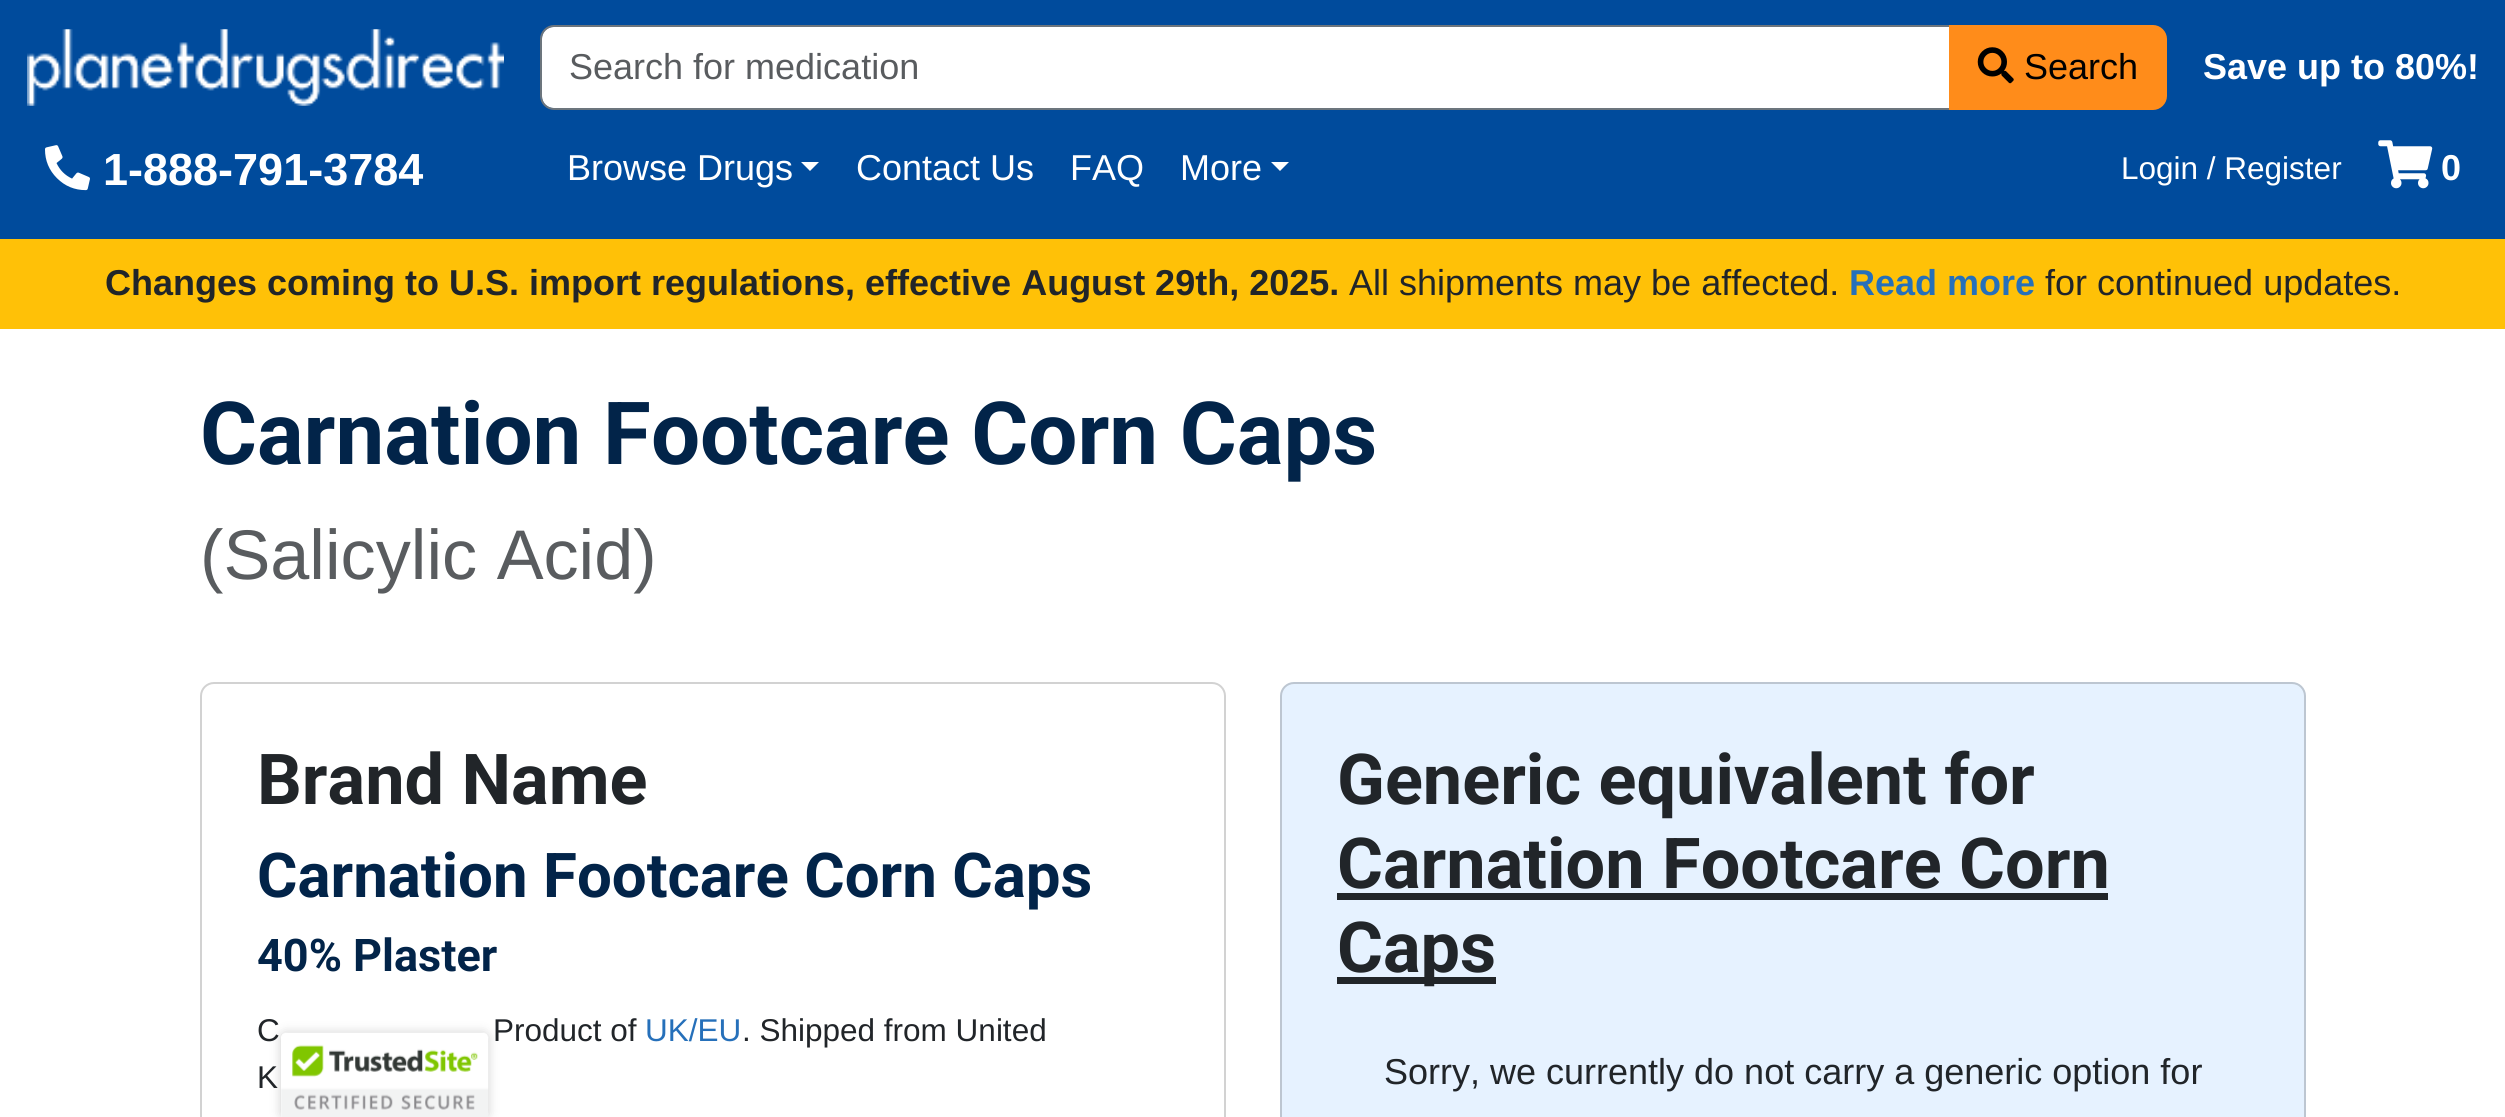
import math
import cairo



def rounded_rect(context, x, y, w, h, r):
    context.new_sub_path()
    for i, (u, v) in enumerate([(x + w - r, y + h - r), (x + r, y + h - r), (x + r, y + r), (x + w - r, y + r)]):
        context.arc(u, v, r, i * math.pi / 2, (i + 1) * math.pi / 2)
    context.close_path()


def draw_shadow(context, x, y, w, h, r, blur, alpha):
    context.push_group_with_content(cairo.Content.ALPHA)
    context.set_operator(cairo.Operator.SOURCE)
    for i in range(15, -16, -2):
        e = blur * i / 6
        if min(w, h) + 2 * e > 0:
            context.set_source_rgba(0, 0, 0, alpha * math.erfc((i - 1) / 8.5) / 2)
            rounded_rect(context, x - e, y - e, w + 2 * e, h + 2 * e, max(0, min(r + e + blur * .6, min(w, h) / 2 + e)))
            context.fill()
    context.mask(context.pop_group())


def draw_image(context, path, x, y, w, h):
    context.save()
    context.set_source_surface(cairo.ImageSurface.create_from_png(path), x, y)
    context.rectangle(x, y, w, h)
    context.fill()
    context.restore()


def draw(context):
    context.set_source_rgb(1, 1, 1)
    context.paint()
    context.set_source_rgb(0, 75 / 255, 156 / 255)
    context.rectangle(0, 0, 2505, 239)
    context.fill()
    draw_image(context, "images/1.png", 27, 29, 477, 77)
    context.set_source_rgb(1, 1, 1)
    context.new_path()
    context.move_to(553, 27)
    context.line_to(1949, 27)
    context.line_to(1949, 108)
    context.line_to(553, 108)
    context.curve_to(547, 108, 542, 103, 542, 97)
    context.line_to(542, 38)
    context.curve_to(542, 32, 547, 27, 553, 27)
    context.close_path()
    context.fill()
    context.new_path()
    context.move_to(554, 26)
    context.line_to(1950, 26)
    context.line_to(1950, 109)
    context.line_to(554, 109)
    context.curve_to(547, 109, 541, 103, 541, 96)
    context.line_to(541, 39)
    context.curve_to(541, 32, 547, 26, 554, 26)
    context.close_path()
    context.set_source_rgb(108 / 255, 117 / 255, 125 / 255)
    context.stroke()
    context.set_source_rgb(1, 140 / 255, 26 / 255)
    context.new_path()
    context.move_to(1950, 26)
    context.line_to(2153, 26)
    context.curve_to(2160, 26, 2166, 32, 2166, 39)
    context.line_to(2166, 96)
    context.curve_to(2166, 103, 2160, 109, 2153, 109)
    context.line_to(1950, 109)
    context.close_path()
    context.fill_preserve()
    context.stroke()
    draw_image(context, "images/2.png", 1977, 47, 37, 37)
    draw_image(context, "images/3.png", 45, 145, 45, 46)
    context.set_source_rgb(1, 1, 1)
    context.new_path()
    context.move_to(801, 162)
    context.line_to(819, 162)
    context.line_to(810, 171)
    context.close_path()
    context.fill()
    context.new_path()
    context.move_to(1271, 162)
    context.line_to(1289, 162)
    context.line_to(1280, 171)
    context.close_path()
    context.fill()
    draw_image(context, "images/4.png", 2378, 140, 55, 49)
    context.set_source_rgb(1, 193 / 255, 7 / 255)
    context.rectangle(0, 239, 2505, 90)
    context.fill()
    rounded_rect(context, 201, 683, 1024, 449, 13)
    context.set_source_rgb(210 / 255, 210 / 255, 210 / 255)
    context.stroke()
    context.set_source_rgb(230 / 255, 242 / 255, 1)
    rounded_rect(context, 1280, 682, 1026, 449, 14)
    context.fill()
    rounded_rect(context, 1281, 683, 1024, 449, 13)
    context.set_source_rgba(0, 0, 0, 0.18)
    context.stroke()
    context.set_source_rgb(33 / 255, 37 / 255, 41 / 255)
    context.rectangle(1337, 893, 771, 7)
    context.fill()
    context.rectangle(1337, 977, 159, 7)
    context.fill()
    context.set_source_rgb(0, 0, 0)
    draw_shadow(context, 281, 1033, 207, 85, 5, 5.5, 0.2)
    context.set_source_rgb(1, 1, 1)
    context.new_path()
    context.move_to(286, 1033)
    context.line_to(483, 1033)
    context.curve_to(486, 1033, 488, 1035, 488, 1038)
    context.line_to(488, 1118)
    context.line_to(281, 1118)
    context.line_to(281, 1038)
    context.curve_to(281, 1035, 283, 1033, 286, 1033)
    context.close_path()
    context.fill()
    draw_image(context, "images/5.png", 281, 1032, 208, 85)
    context.select_font_face("Liberation Sans")
    context.set_font_size(36)
    context.set_source_rgb(89 / 255, 92 / 255, 95 / 255)
    context.move_to(569, 79)
    context.show_text("Search for medication")
    context.set_source_rgb(0, 0, 0)
    context.move_to(2024, 79)
    context.show_text("Search")
    context.select_font_face("Liberation Sans", cairo.FontSlant.NORMAL, cairo.FontWeight.BOLD)
    context.set_source_rgb(1, 1, 1)
    context.move_to(2203, 79)
    context.show_text("Save up to 80%!")
    context.set_font_size(45)
    context.move_to(103, 185)
    context.show_text("1-888-791-3784")
    context.select_font_face("Liberation Sans")
    context.set_font_size(36)
    context.move_to(567, 180)
    context.show_text("Browse Drugs")
    context.move_to(856, 180)
    context.show_text("Contact Us")
    context.move_to(1070, 180)
    context.show_text("FAQ")
    context.move_to(1180, 180)
    context.show_text("More")
    context.set_font_size(31.5)
    context.move_to(2121, 179)
    context.show_text("Login / Register")
    context.select_font_face("Liberation Sans", cairo.FontSlant.NORMAL, cairo.FontWeight.BOLD)
    context.set_font_size(36)
    context.move_to(2441, 180)
    context.show_text("0")
    context.set_source_rgb(33 / 255, 37 / 255, 41 / 255)
    context.move_to(105, 295)
    context.show_text("Changes coming to U.S. import regulations, effective August 29th, 2025.")
    context.select_font_face("Liberation Sans")
    context.move_to(1349, 295)
    context.show_text("All shipments may be affected.")
    context.select_font_face("Liberation Sans", cairo.FontSlant.NORMAL, cairo.FontWeight.BOLD)
    context.set_source_rgb(38 / 255, 112 / 255, 186 / 255)
    context.move_to(1849, 295)
    context.show_text("Read more")
    context.select_font_face("Liberation Sans")
    context.set_source_rgb(33 / 255, 37 / 255, 41 / 255)
    context.move_to(2045, 295)
    context.show_text("for continued updates.")
    context.select_font_face("Roboto", cairo.FontSlant.NORMAL, cairo.FontWeight.BOLD)
    context.set_font_size(87.1)
    context.set_source_rgb(2 / 255, 36 / 255, 73 / 255)
    context.move_to(200, 464)
    context.show_text("Carnation Footcare Corn Caps")
    context.select_font_face("Liberation Sans")
    context.set_font_size(70.25)
    context.set_source_rgb(89 / 255, 92 / 255, 95 / 255)
    context.move_to(200, 579)
    context.show_text("(Salicylic Acid)")
    context.select_font_face("Roboto", cairo.FontSlant.NORMAL, cairo.FontWeight.BOLD)
    context.set_source_rgb(33 / 255, 37 / 255, 41 / 255)
    context.move_to(257, 804)
    context.show_text("Brand Name")
    context.set_font_size(61.8)
    context.set_source_rgb(2 / 255, 36 / 255, 73 / 255)
    context.move_to(257, 897)
    context.show_text("Carnation Footcare Corn Caps")
    context.set_font_size(45)
    context.move_to(257, 971)
    context.show_text("40% Plaster")
    context.select_font_face("Liberation Sans")
    context.set_font_size(31.5)
    context.set_source_rgb(33 / 255, 37 / 255, 41 / 255)
    context.move_to(257, 1041)
    context.show_text("C")
    context.move_to(493, 1041)
    context.show_text("Product of")
    context.set_source_rgb(38 / 255, 112 / 255, 186 / 255)
    context.move_to(645, 1041)
    context.show_text("UK/EU")
    context.set_source_rgb(33 / 255, 37 / 255, 41 / 255)
    context.move_to(742, 1041)
    context.show_text(". Shipped from United")
    context.move_to(257, 1088)
    context.show_text("K")
    context.select_font_face("Roboto", cairo.FontSlant.NORMAL, cairo.FontWeight.BOLD)
    context.set_font_size(70.25)
    context.move_to(1337, 804)
    context.show_text("Generic equivalent for")
    context.move_to(1337, 888)
    context.show_text("Carnation Footcare Corn")
    context.move_to(1337, 972)
    context.show_text("Caps")
    context.select_font_face("Liberation Sans")
    context.set_font_size(36)
    context.move_to(1384, 1084)
    context.show_text("Sorry, we currently do not carry a generic option for")


surface = cairo.ImageSurface(cairo.Format.RGB24, 2505, 1117)
context = cairo.Context(surface)
options = cairo.FontOptions()
options.set_hint_metrics(cairo.HintMetrics.OFF)
options.set_hint_style(cairo.HintStyle.NONE)
context.set_font_options(options)
context.set_miter_limit(4)
draw(context)
surface.write_to_png("out.png")
